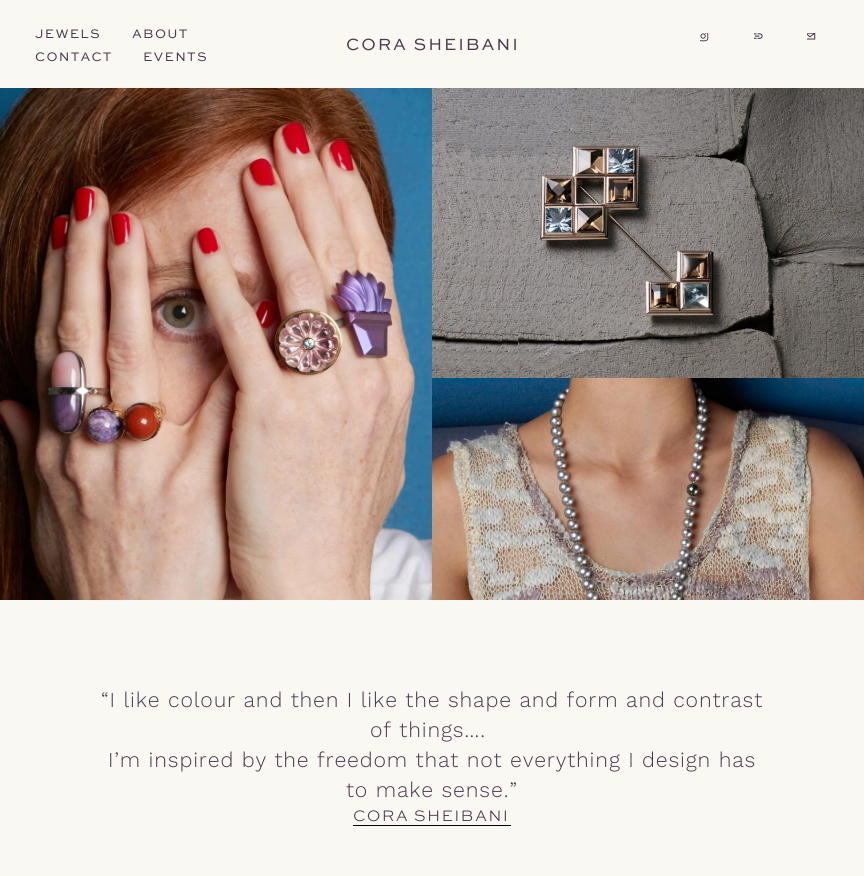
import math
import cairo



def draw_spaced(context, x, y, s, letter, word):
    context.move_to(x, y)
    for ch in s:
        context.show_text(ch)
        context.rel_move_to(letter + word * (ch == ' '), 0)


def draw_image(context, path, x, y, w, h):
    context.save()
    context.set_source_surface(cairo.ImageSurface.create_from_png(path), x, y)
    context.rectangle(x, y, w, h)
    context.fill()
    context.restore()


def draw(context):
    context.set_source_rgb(250 / 255, 248 / 255, 242 / 255)
    context.paint()
    draw_image(context, "images/1.png", 700, 33, 9, 9)
    draw_image(context, "images/2.png", 754, 33, 9, 6)
    draw_image(context, "images/3.png", 807, 33, 9, 7)
    draw_image(context, "images/4.png", 0, 88, 432, 512)
    draw_image(context, "images/5.png", 432, 88, 432, 290)
    draw_image(context, "images/6.png", 432, 378, 432, 222)
    context.set_source_rgb(0, 0, 0)
    context.rectangle(353, 825, 158, 1)
    context.fill()
    context.select_font_face("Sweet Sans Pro")
    context.set_font_size(13)
    context.set_source_rgb(77 / 255, 58 / 255, 80 / 255)
    draw_spaced(context, 35, 38, "JEWELS", 1.25, 0)
    draw_spaced(context, 132, 38, "ABOUT", 1.25, 0)
    draw_spaced(context, 35, 61, "CONTACT", 1.25, 0)
    draw_spaced(context, 143, 61, "EVENTS", 1.25, 0)
    context.set_font_size(17.1)
    draw_spaced(context, 346, 50, "CORA SHEIBANI", 1.9, 0)
    context.select_font_face("Work Sans Light")
    context.set_font_size(21.25)
    draw_spaced(context, 101, 707, "“I like colour and then I like the shape and form and contrast", 0.85, 0)
    draw_spaced(context, 370, 737, "of things….", 0.85, 0)
    draw_spaced(context, 108, 767, "I’m inspired by the freedom that not everything I design has", 0.85, 0)
    draw_spaced(context, 346, 797, "to make sense.”", 0.85, 0)
    context.select_font_face("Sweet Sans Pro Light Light")
    context.set_font_size(16)
    draw_spaced(context, 353, 821, "CORA SHEIBANI", 1.25, 0)


surface = cairo.ImageSurface(cairo.Format.RGB24, 864, 876)
context = cairo.Context(surface)
options = cairo.FontOptions()
options.set_hint_metrics(cairo.HintMetrics.OFF)
options.set_hint_style(cairo.HintStyle.NONE)
context.set_font_options(options)
context.set_miter_limit(4)
draw(context)
surface.write_to_png("out.png")
